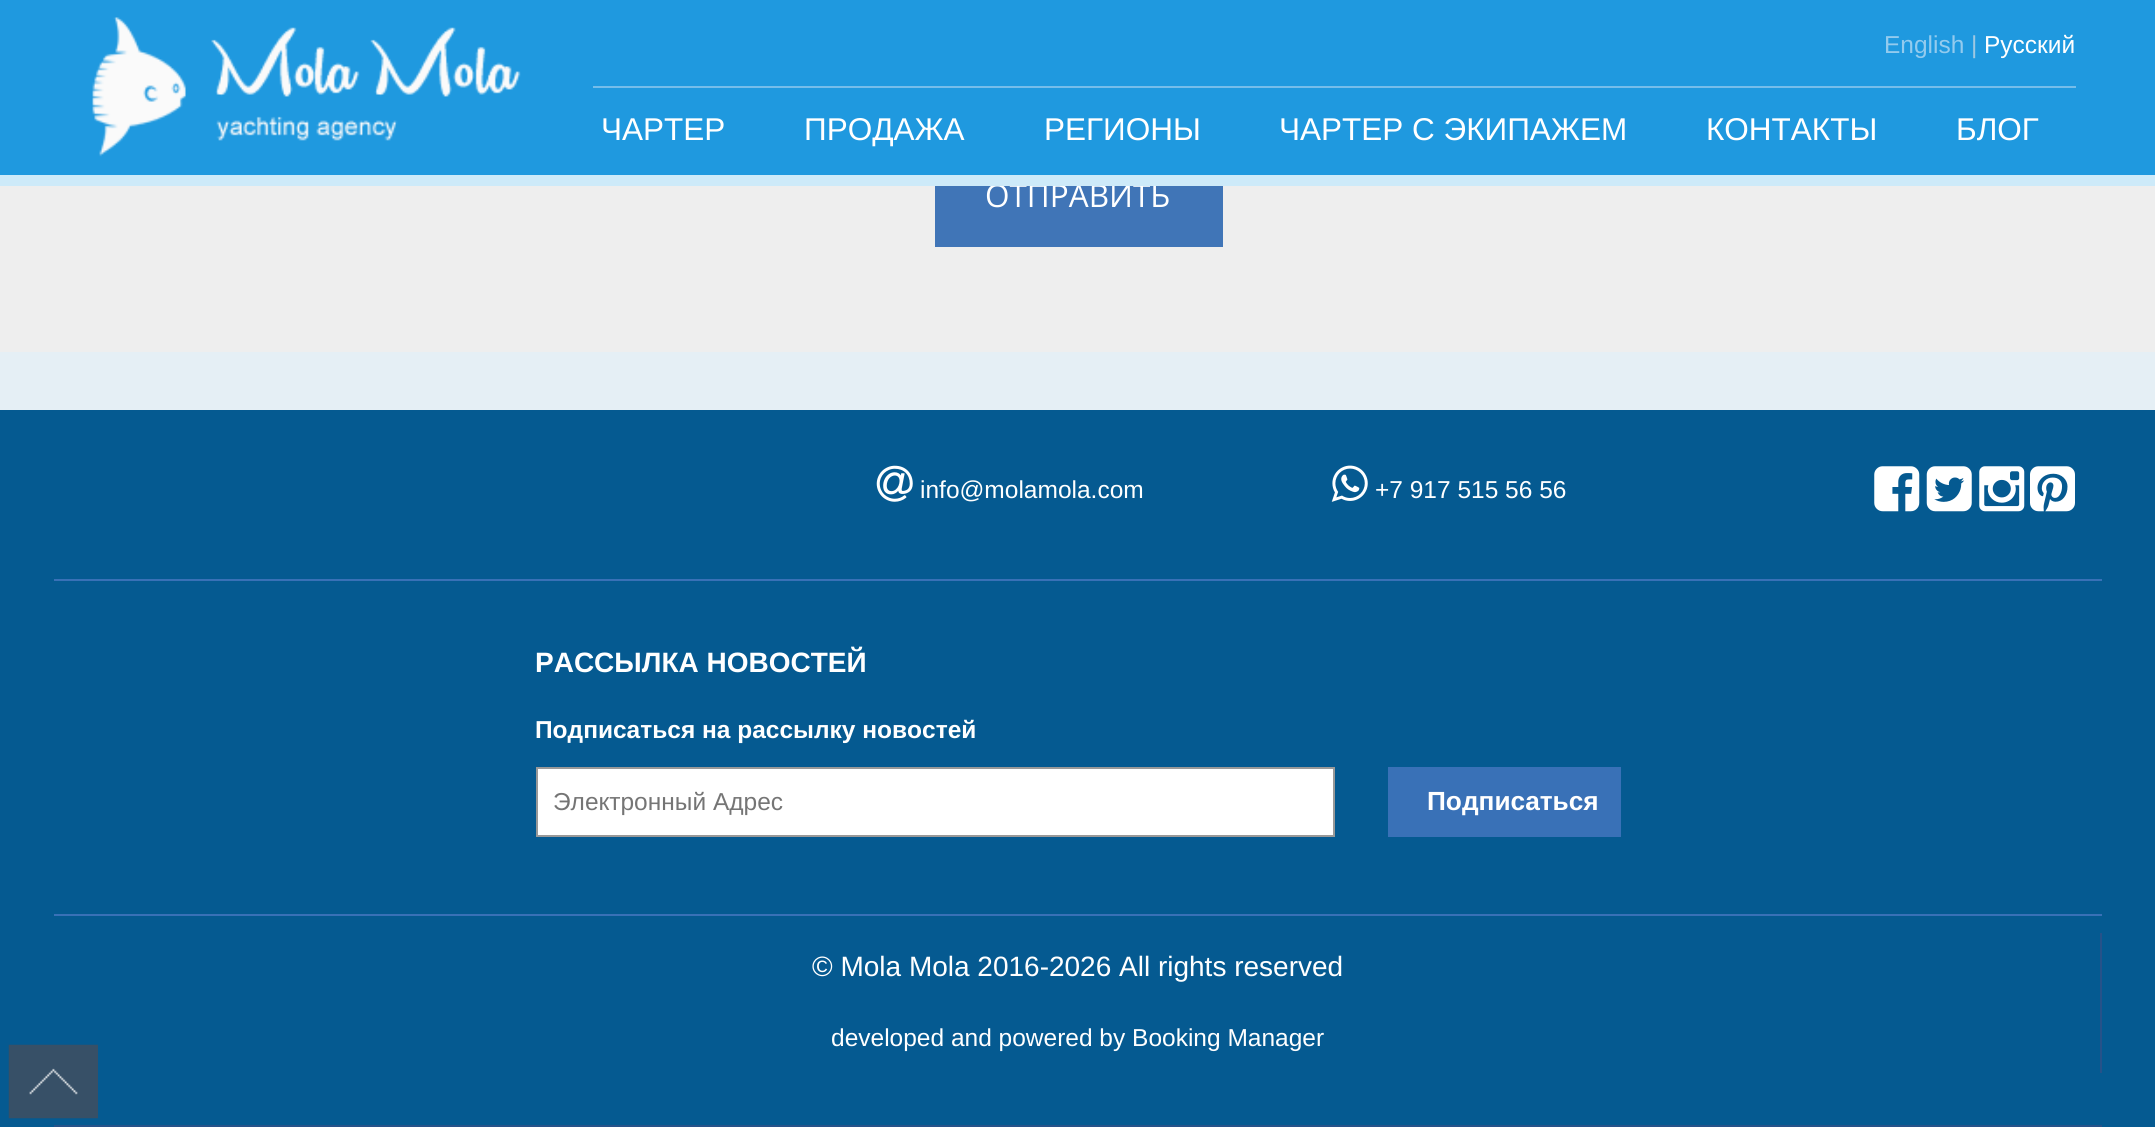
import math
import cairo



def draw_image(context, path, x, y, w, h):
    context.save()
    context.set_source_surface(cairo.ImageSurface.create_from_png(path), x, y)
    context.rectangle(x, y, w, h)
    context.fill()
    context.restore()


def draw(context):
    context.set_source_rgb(229 / 255, 239 / 255, 245 / 255)
    context.paint()
    context.set_source_rgb(31 / 255, 153 / 255, 223 / 255)
    context.rectangle(0, 0, 2155, 175)
    context.fill()
    draw_image(context, "images/1.png", 92, 17, 429, 140)
    context.set_source_rgb(117 / 255, 189 / 255, 234 / 255)
    context.rectangle(593, 86, 1483, 2)
    context.fill()
    context.set_source_rgb(238 / 255, 238 / 255, 238 / 255)
    context.rectangle(0, 186, 2155, 166)
    context.fill()
    context.set_source_rgb(64 / 255, 117 / 255, 183 / 255)
    context.rectangle(935, 186, 288, 61)
    context.fill()
    context.set_source_rgb(5 / 255, 90 / 255, 145 / 255)
    context.rectangle(0, 410, 2155, 717)
    context.fill()
    context.set_source_rgb(57 / 255, 113 / 255, 183 / 255)
    context.rectangle(54, 579, 2048, 2)
    context.fill()
    draw_image(context, "images/2.png", 876, 465, 37, 37)
    draw_image(context, "images/3.png", 1331, 465, 37, 37)
    draw_image(context, "images/4.png", 1874, 466, 46, 46)
    draw_image(context, "images/5.png", 1926, 466, 46, 46)
    draw_image(context, "images/6.png", 1979, 466, 46, 46)
    draw_image(context, "images/7.png", 2030, 466, 45, 46)
    context.rectangle(54, 914, 2048, 2)
    context.fill()
    context.set_source_rgb(1, 1, 1)
    context.rectangle(537, 768, 797, 68)
    context.fill_preserve()
    context.set_source_rgb(153 / 255, 153 / 255, 153 / 255)
    context.stroke()
    context.set_source_rgb(57 / 255, 113 / 255, 183 / 255)
    context.rectangle(1388, 767, 233, 70)
    context.fill()
    context.set_source_rgb(38 / 255, 82 / 255, 137 / 255)
    context.rectangle(54, 1125, 2048, 2)
    context.fill()
    context.rectangle(2100, 933, 2, 140)
    context.fill()
    draw_image(context, "images/8.png", 8, 1044, 90, 75)
    context.select_font_face("Liberation Sans")
    context.set_font_size(24.5)
    context.set_source_rgb(147 / 255, 203 / 255, 238 / 255)
    context.move_to(1884, 53)
    context.show_text("English")
    context.set_source_rgb(158 / 255, 200 / 255, 226 / 255)
    context.move_to(1971, 53)
    context.show_text("|")
    context.set_source_rgb(1, 1, 1)
    context.move_to(1984, 53)
    context.show_text("Русский")
    context.set_font_size(31.5)
    context.move_to(601, 140)
    context.show_text("ЧАРТЕР")
    context.move_to(804, 140)
    context.show_text("ПРОДАЖА")
    context.move_to(1044, 140)
    context.show_text("РЕГИОНЫ")
    context.move_to(1279, 140)
    context.show_text("ЧАРТЕР С ЭКИПАЖЕМ")
    context.move_to(1706, 140)
    context.show_text("КОНТАКТЫ")
    context.move_to(1956, 140)
    context.show_text("БЛОГ")
    context.select_font_face("Open Sans")
    context.move_to(985, 207)
    context.show_text("ОТПРАВИТЬ")
    context.set_source_rgb(205 / 255, 234 / 255, 249 / 255)
    context.rectangle(0, 175, 2155, 11)
    context.fill()
    context.select_font_face("Liberation Sans")
    context.set_font_size(24.5)
    context.set_source_rgb(1, 1, 1)
    context.move_to(920, 498)
    context.show_text("info@molamola.com")
    context.move_to(1375, 498)
    context.show_text("+7 917 515 56 56")
    context.select_font_face("Liberation Sans", cairo.FontSlant.NORMAL, cairo.FontWeight.BOLD)
    context.set_font_size(28)
    context.move_to(535, 672)
    context.show_text("РАССЫЛКА НОВОСТЕЙ")
    context.set_font_size(24.5)
    context.move_to(535, 738)
    context.show_text("Подписаться на рассылку новостей")
    context.select_font_face("Liberation Sans")
    context.set_source_rgb(117 / 255, 117 / 255, 117 / 255)
    context.move_to(553, 810)
    context.show_text("Электронный Адрес")
    context.select_font_face("Liberation Sans", cairo.FontSlant.NORMAL, cairo.FontWeight.BOLD)
    context.set_font_size(26.25)
    context.set_source_rgb(1, 1, 1)
    context.move_to(1427, 810)
    context.show_text("Подписаться")
    context.select_font_face("Liberation Sans")
    context.set_font_size(28)
    context.move_to(812, 976)
    context.show_text("© Mola Mola 2016-2026 All rights reserved")
    context.set_font_size(24.5)
    context.move_to(831, 1046)
    context.show_text("developed and powered by Booking Manager")


surface = cairo.ImageSurface(cairo.Format.RGB24, 2155, 1127)
context = cairo.Context(surface)
options = cairo.FontOptions()
options.set_hint_metrics(cairo.HintMetrics.OFF)
options.set_hint_style(cairo.HintStyle.NONE)
context.set_font_options(options)
context.set_miter_limit(4)
draw(context)
surface.write_to_png("out.png")
